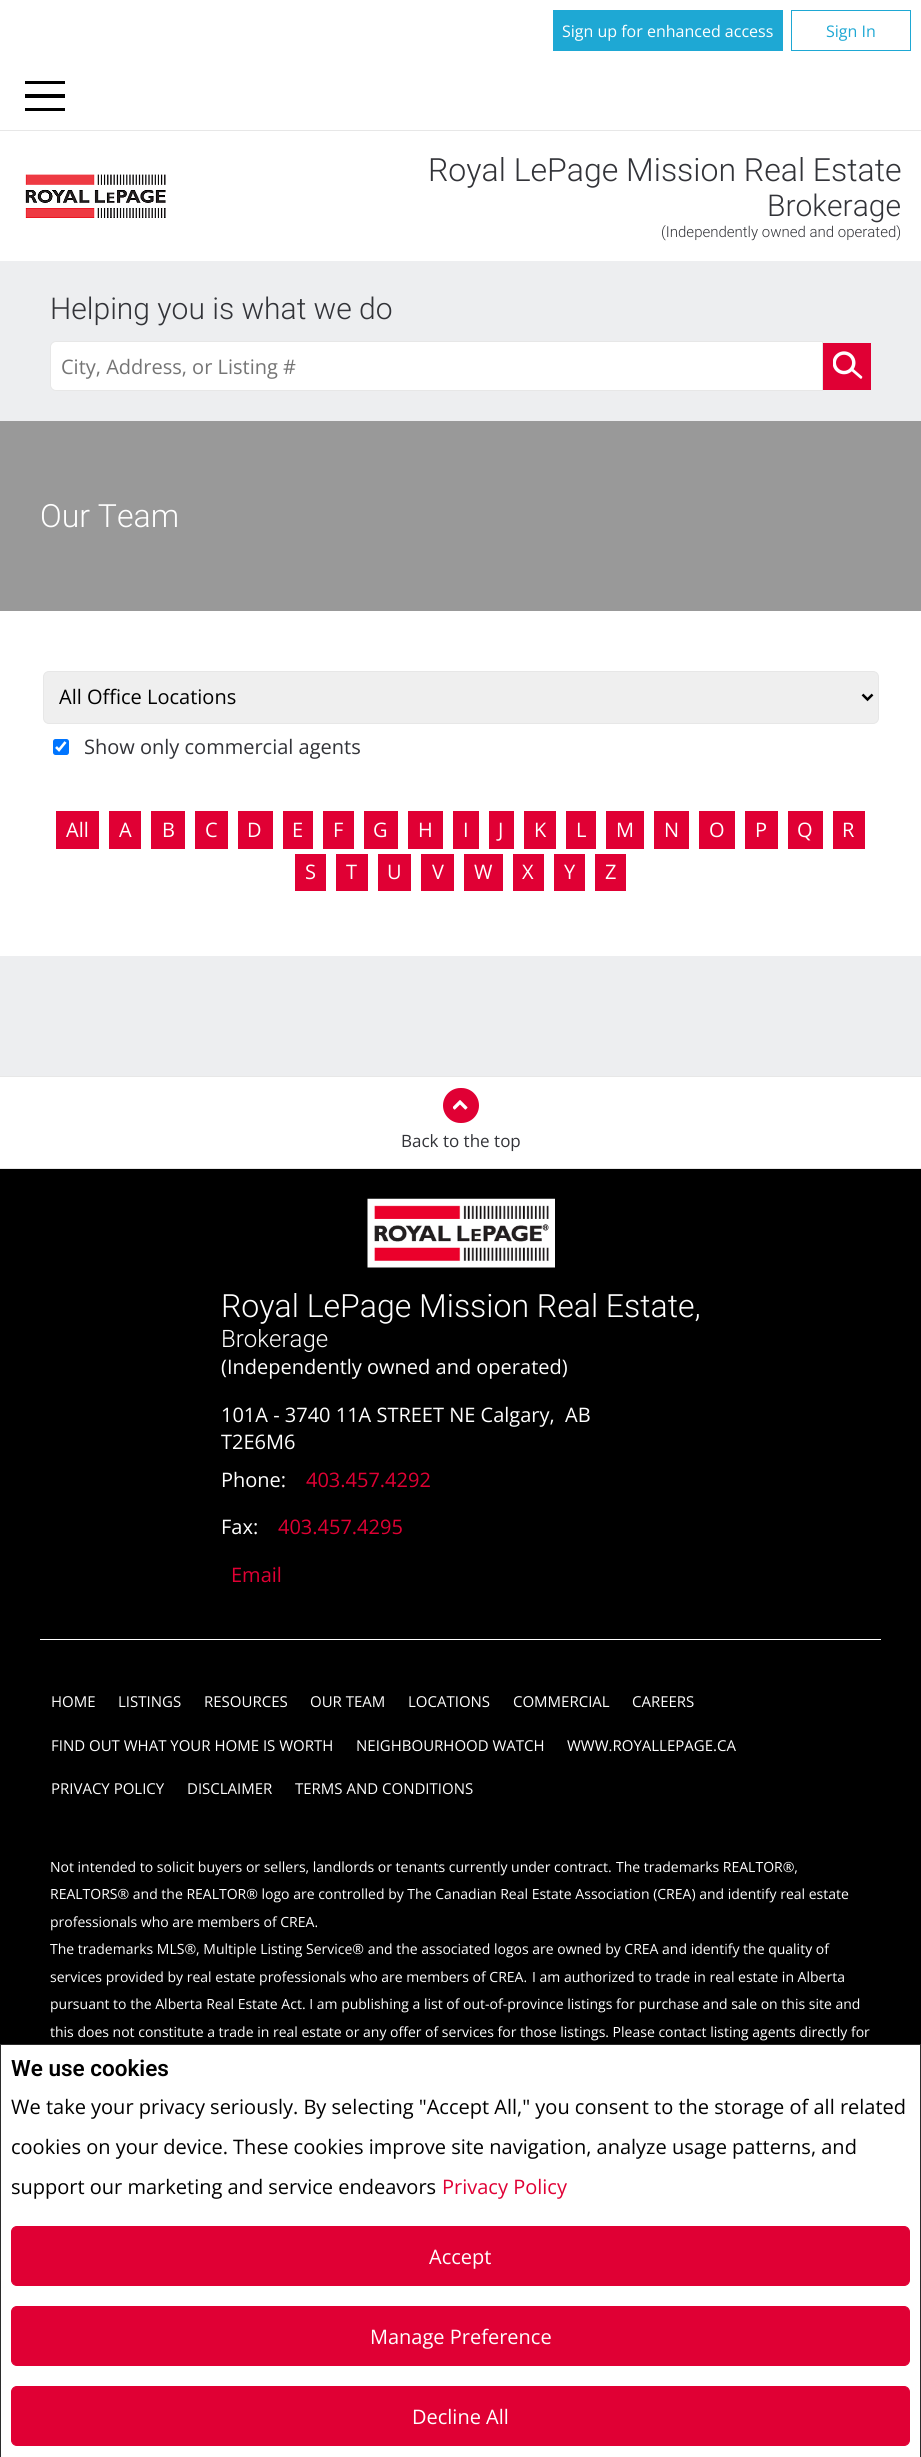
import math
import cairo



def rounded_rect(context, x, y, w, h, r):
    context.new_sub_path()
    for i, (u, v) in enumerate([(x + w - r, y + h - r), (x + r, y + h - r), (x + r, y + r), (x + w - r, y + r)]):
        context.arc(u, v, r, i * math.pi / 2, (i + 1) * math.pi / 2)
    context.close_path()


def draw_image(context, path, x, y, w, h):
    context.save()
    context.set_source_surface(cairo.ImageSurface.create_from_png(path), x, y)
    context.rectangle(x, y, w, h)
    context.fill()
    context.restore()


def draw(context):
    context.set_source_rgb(1, 1, 1)
    context.paint()
    context.set_source_rgb(30 / 255, 168 / 255, 212 / 255)
    context.rectangle(553, 10, 230, 41)
    context.fill()
    context.rectangle(791.5, 10.5, 119, 40)
    context.set_line_width(1)
    context.stroke()
    context.set_source_rgb(231 / 255, 231 / 255, 231 / 255)
    context.rectangle(0, 130, 921, 1)
    context.fill()
    context.set_source_rgb(0, 0, 0)
    context.rectangle(25, 81, 40, 3)
    context.fill()
    context.rectangle(25, 94, 40, 4)
    context.fill()
    context.rectangle(25, 108, 40, 3)
    context.fill()
    draw_image(context, "images/1.png", 25, 174, 141, 44)
    context.set_source_rgb(237 / 255, 238 / 255, 240 / 255)
    context.rectangle(0, 261, 921, 160)
    context.fill()
    context.set_source_rgb(1, 1, 1)
    context.new_path()
    context.move_to(56, 341.5)
    context.line_to(822.5, 341.5)
    context.line_to(822.5, 390.5)
    context.line_to(56, 390.5)
    context.curve_to(53, 390.5, 50.5, 388, 50.5, 385)
    context.line_to(50.5, 347)
    context.curve_to(50.5, 344, 53, 341.5, 56, 341.5)
    context.close_path()
    context.fill_preserve()
    context.set_source_rgb(231 / 255, 231 / 255, 231 / 255)
    context.stroke()
    context.set_source_rgb(224 / 255, 0, 52 / 255)
    context.rectangle(823, 343, 48, 47)
    context.fill()
    draw_image(context, "images/2.png", 833, 351, 30, 28)
    context.set_source_rgb(153 / 255, 153 / 255, 153 / 255)
    context.rectangle(0, 421, 921, 190)
    context.fill()
    context.set_source_rgb(239 / 255, 239 / 255, 239 / 255)
    rounded_rect(context, 43.5, 671.5, 835, 52, 5.5)
    context.fill_preserve()
    context.set_source_rgb(231 / 255, 231 / 255, 231 / 255)
    context.stroke()
    context.new_path()
    context.move_to(862.5, 694.5)
    context.line_to(867.5, 699.5)
    context.line_to(872.5, 694.5)
    context.set_source_rgb(0, 0, 0)
    context.set_line_width(2.5)
    context.stroke()
    context.set_source_rgb(0, 117 / 255, 1)
    rounded_rect(context, 53, 739, 16, 16, 2.5)
    context.fill()
    context.new_path()
    context.move_to(56, 747)
    context.line_to(59, 750)
    context.line_to(65.5, 742)
    context.set_source_rgb(1, 1, 1)
    context.set_line_width(2.6)
    context.stroke()
    context.set_source_rgb(224 / 255, 0, 52 / 255)
    context.rectangle(56, 811, 43, 38)
    context.fill()
    context.rectangle(109, 811, 32, 38)
    context.fill()
    context.rectangle(151, 811, 34, 38)
    context.fill()
    context.rectangle(195, 811, 33, 38)
    context.fill()
    context.rectangle(238, 811, 35, 38)
    context.fill()
    context.rectangle(283, 811, 30, 38)
    context.fill()
    context.rectangle(323, 811, 31, 38)
    context.fill()
    context.rectangle(364, 811, 34, 38)
    context.fill()
    context.rectangle(408, 811, 35, 38)
    context.fill()
    context.rectangle(453, 811, 26, 38)
    context.fill()
    context.rectangle(489, 811, 25, 38)
    context.fill()
    context.rectangle(524, 811, 32, 38)
    context.fill()
    context.rectangle(566, 811, 30, 38)
    context.fill()
    context.rectangle(606, 811, 38, 38)
    context.fill()
    context.rectangle(654, 811, 35, 38)
    context.fill()
    context.rectangle(699, 811, 36, 38)
    context.fill()
    context.rectangle(745, 811, 33, 38)
    context.fill()
    context.rectangle(788, 811, 35, 38)
    context.fill()
    context.rectangle(833, 811, 32, 38)
    context.fill()
    context.rectangle(295, 854, 31, 37)
    context.fill()
    context.rectangle(336, 854, 32, 37)
    context.fill()
    context.rectangle(378, 854, 33, 37)
    context.fill()
    context.rectangle(421, 854, 33, 37)
    context.fill()
    context.rectangle(464, 854, 39, 37)
    context.fill()
    context.rectangle(513, 854, 31, 37)
    context.fill()
    context.rectangle(554, 854, 31, 37)
    context.fill()
    context.rectangle(595, 854, 31, 37)
    context.fill()
    context.set_source_rgb(237 / 255, 238 / 255, 240 / 255)
    context.rectangle(0, 956, 921, 120)
    context.fill()
    context.set_source_rgb(231 / 255, 231 / 255, 231 / 255)
    context.rectangle(0, 1076, 921, 1)
    context.fill()
    context.rectangle(0, 1168, 921, 1)
    context.fill()
    context.set_source_rgb(224 / 255, 0, 52 / 255)
    rounded_rect(context, 443, 1088, 36, 35, 17.5)
    context.fill()
    draw_image(context, "images/3.png", 453, 1100, 15, 10)
    context.set_source_rgb(0, 0, 0)
    context.rectangle(0, 1169, 921, 875)
    context.fill()
    context.set_source_rgb(1, 1, 1)
    context.rectangle(40, 1639, 841, 1)
    context.fill()
    draw_image(context, "images/4.png", 367, 1198, 188, 70)
    context.rectangle(0.5, 2044.5, 920, 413)
    context.set_source_rgb(43 / 255, 43 / 255, 43 / 255)
    context.set_line_width(1)
    context.stroke()
    context.set_source_rgb(224 / 255, 0, 52 / 255)
    rounded_rect(context, 11.5, 2226.5, 898, 59, 5.5)
    context.fill_preserve()
    context.stroke()
    rounded_rect(context, 11.5, 2306.5, 898, 59, 5.5)
    context.fill_preserve()
    context.stroke()
    rounded_rect(context, 11.5, 2386.5, 898, 59, 5.5)
    context.fill_preserve()
    context.stroke()
    context.select_font_face("Open Sans")
    context.set_font_size(16)
    context.set_source_rgb(1, 1, 1)
    context.move_to(562, 37)
    context.show_text("Sign up for enhanced access")
    context.set_source_rgb(30 / 255, 168 / 255, 212 / 255)
    context.move_to(826, 37)
    context.show_text("Sign In")
    context.select_font_face("Roboto Light")
    context.set_font_size(32)
    context.set_source_rgb(50 / 255, 51 / 255, 56 / 255)
    context.move_to(428, 181)
    context.show_text("Royal LePage Mission Real Estate")
    context.set_font_size(30)
    context.move_to(767, 216)
    context.show_text("Brokerage")
    context.set_font_size(15)
    context.move_to(661, 237)
    context.show_text("(Independently owned and operated)")
    context.set_font_size(30)
    context.move_to(50, 319)
    context.show_text("Helping you is what we do")
    context.select_font_face("Open Sans")
    context.set_font_size(20)
    context.set_source_rgb(117 / 255, 117 / 255, 117 / 255)
    context.move_to(61, 374)
    context.show_text("City, Address, or Listing #")
    context.select_font_face("Roboto Light")
    context.set_font_size(32)
    context.set_source_rgb(1, 1, 1)
    context.move_to(40, 527)
    context.show_text("Our Team")
    context.select_font_face("Open Sans")
    context.set_font_size(20)
    context.set_source_rgb(0, 0, 0)
    context.move_to(59, 704)
    context.show_text("All Office Locations")
    context.set_source_rgb(50 / 255, 51 / 255, 56 / 255)
    context.move_to(84, 754)
    context.show_text("Show only commercial agents")
    context.set_source_rgb(1, 1, 1)
    context.move_to(66, 837)
    context.show_text("All")
    context.move_to(119, 837)
    context.show_text("A")
    context.move_to(162, 837)
    context.show_text("B")
    context.move_to(205, 837)
    context.show_text("C")
    context.move_to(247, 837)
    context.show_text("D")
    context.move_to(292, 837)
    context.show_text("E")
    context.move_to(333, 837)
    context.show_text("F")
    context.move_to(373, 837)
    context.show_text("G")
    context.move_to(418, 837)
    context.show_text("H")
    context.move_to(463, 837)
    context.show_text("I")
    context.move_to(498, 837)
    context.show_text("J")
    context.move_to(534, 837)
    context.show_text("K")
    context.move_to(576, 837)
    context.show_text("L")
    context.move_to(616, 837)
    context.show_text("M")
    context.move_to(664, 837)
    context.show_text("N")
    context.move_to(709, 837)
    context.show_text("O")
    context.move_to(755, 837)
    context.show_text("P")
    context.move_to(797, 837)
    context.show_text("Q")
    context.move_to(842, 837)
    context.show_text("R")
    context.move_to(305, 879)
    context.show_text("S")
    context.move_to(346, 879)
    context.show_text("T")
    context.move_to(387, 879)
    context.show_text("U")
    context.move_to(432, 879)
    context.show_text("V")
    context.move_to(474, 879)
    context.show_text("W")
    context.move_to(522, 879)
    context.show_text("X")
    context.move_to(564, 879)
    context.show_text("Y")
    context.move_to(605, 879)
    context.show_text("Z")
    context.set_font_size(17)
    context.set_source_rgb(50 / 255, 51 / 255, 56 / 255)
    context.move_to(401, 1147)
    context.show_text("Back to the top")
    context.select_font_face("Roboto Light")
    context.set_font_size(32)
    context.set_source_rgb(1, 1, 1)
    context.move_to(221, 1317)
    context.show_text("Royal LePage Mission Real Estate,")
    context.set_font_size(24)
    context.move_to(221, 1347)
    context.show_text("Brokerage")
    context.select_font_face("Open Sans")
    context.set_font_size(20)
    context.move_to(221, 1374)
    context.show_text("(Independently owned and operated)")
    context.move_to(221, 1422)
    context.show_text("101A - 3740 11A STREET NE Calgary,")
    context.move_to(565, 1422)
    context.show_text("AB")
    context.move_to(221, 1449)
    context.show_text("T2E6M6")
    context.move_to(221, 1487)
    context.show_text("Phone:")
    context.set_source_rgb(224 / 255, 0, 52 / 255)
    context.move_to(306, 1487)
    context.show_text("403.457.4292")
    context.set_source_rgb(1, 1, 1)
    context.move_to(221, 1534)
    context.show_text("Fax:")
    context.set_source_rgb(224 / 255, 0, 52 / 255)
    context.move_to(278, 1534)
    context.show_text("403.457.4295")
    context.move_to(231, 1582)
    context.show_text("Email")
    context.set_font_size(15)
    context.set_source_rgb(1, 1, 1)
    context.move_to(51, 1707)
    context.show_text("HOME")
    context.move_to(118, 1707)
    context.show_text("LISTINGS")
    context.move_to(204, 1707)
    context.show_text("RESOURCES")
    context.move_to(310, 1707)
    context.show_text("OUR TEAM")
    context.move_to(408, 1707)
    context.show_text("LOCATIONS")
    context.move_to(513, 1707)
    context.show_text("COMMERCIAL")
    context.move_to(632, 1707)
    context.show_text("CAREERS")
    context.move_to(51, 1751)
    context.show_text("FIND OUT WHAT YOUR HOME IS WORTH")
    context.move_to(356, 1751)
    context.show_text("NEIGHBOURHOOD WATCH")
    context.move_to(567, 1751)
    context.show_text("WWW.ROYALLEPAGE.CA")
    context.move_to(51, 1794)
    context.show_text("PRIVACY POLICY")
    context.move_to(187, 1794)
    context.show_text("DISCLAIMER")
    context.move_to(295, 1794)
    context.show_text("TERMS AND CONDITIONS")
    context.set_font_size(14)
    context.move_to(50, 1872)
    context.show_text("Not intended to solicit buyers or sellers, landlords or tenants currently under contract.")
    context.move_to(616, 1872)
    context.show_text("The trademarks REALTOR®,")
    context.move_to(50, 1899)
    context.show_text("REALTORS® and the REALTOR® logo are controlled by The Canadian Real Estate Association (CREA) and identify real estate")
    context.move_to(50, 1927)
    context.show_text("professionals who are members of CREA.")
    context.move_to(50, 1954)
    context.show_text("The trademarks MLS®, Multiple Listing Service® and the associated logos are owned by CREA and identify the quality of")
    context.move_to(50, 1982)
    context.show_text("services provided by real estate professionals who are members of CREA.")
    context.move_to(532, 1982)
    context.show_text("I am authorized to trade in real estate in Alberta")
    context.move_to(50, 2009)
    context.show_text("pursuant to the Alberta Real Estate Act. I am publishing a list of out-of-province listings for purchase and sale on this site and")
    context.move_to(50, 2037)
    context.show_text("this does not constitute a trade in real estate or any offer of services for those listings. Please contact listing agents directly for")
    context.select_font_face("Roboto SemiBold")
    context.set_font_size(22.5)
    context.set_source_rgb(0, 0, 0)
    context.move_to(11, 2076)
    context.show_text("We use cookies")
    context.select_font_face("Open Sans")
    context.set_font_size(20)
    context.move_to(11, 2114)
    context.show_text("We take your privacy seriously. By selecting \"Accept All,\" you consent to the storage of all related")
    context.move_to(11, 2154)
    context.show_text("cookies on your device. These cookies improve site navigation, analyze usage patterns, and")
    context.move_to(11, 2194)
    context.show_text("support our marketing and service endeavors")
    context.set_source_rgb(224 / 255, 0, 52 / 255)
    context.move_to(442, 2194)
    context.show_text("Privacy Policy")
    context.set_source_rgb(1, 1, 1)
    context.move_to(429, 2264)
    context.show_text("Accept")
    context.move_to(370, 2344)
    context.show_text("Manage Preference")
    context.move_to(412, 2424)
    context.show_text("Decline All")


surface = cairo.ImageSurface(cairo.Format.RGB24, 921, 2457)
context = cairo.Context(surface)
options = cairo.FontOptions()
options.set_hint_metrics(cairo.HintMetrics.OFF)
options.set_hint_style(cairo.HintStyle.NONE)
context.set_font_options(options)
context.set_miter_limit(4)
draw(context)
surface.write_to_png("out.png")
